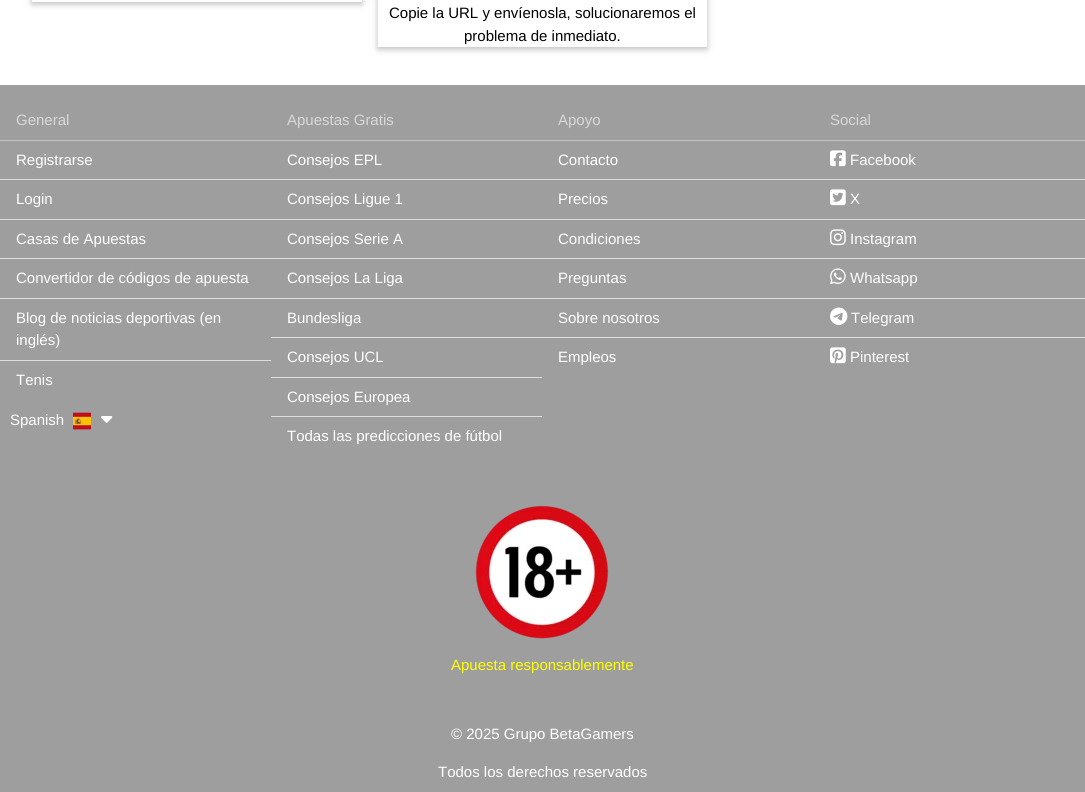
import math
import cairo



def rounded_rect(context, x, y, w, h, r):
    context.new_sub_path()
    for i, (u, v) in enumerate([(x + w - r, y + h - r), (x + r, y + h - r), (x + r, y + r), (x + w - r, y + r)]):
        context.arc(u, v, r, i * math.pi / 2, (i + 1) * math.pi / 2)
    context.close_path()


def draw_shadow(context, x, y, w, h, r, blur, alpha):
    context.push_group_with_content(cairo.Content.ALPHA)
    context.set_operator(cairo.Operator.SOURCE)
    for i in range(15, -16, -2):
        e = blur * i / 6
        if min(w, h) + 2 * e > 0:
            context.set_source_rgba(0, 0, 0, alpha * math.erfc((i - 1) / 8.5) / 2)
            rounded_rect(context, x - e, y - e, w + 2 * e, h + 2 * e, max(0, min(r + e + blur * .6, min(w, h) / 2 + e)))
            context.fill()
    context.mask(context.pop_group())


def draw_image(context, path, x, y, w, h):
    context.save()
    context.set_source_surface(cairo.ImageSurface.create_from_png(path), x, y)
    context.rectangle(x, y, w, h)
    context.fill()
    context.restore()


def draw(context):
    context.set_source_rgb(1, 1, 1)
    context.paint()
    context.save()
    context.set_fill_rule(cairo.FillRule.EVEN_ODD)
    context.new_path()
    context.move_to(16, 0)
    context.line_to(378, 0)
    context.line_to(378, 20)
    context.line_to(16, 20)
    context.close_path()
    context.move_to(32, -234)
    context.line_to(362, -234)
    context.line_to(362, 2)
    context.line_to(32, 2)
    context.close_path()
    context.clip()
    context.set_source_rgb(0, 0, 0)
    draw_shadow(context, 32, -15, 330, 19, 0, 5, 0.12)
    context.restore()
    context.save()
    context.set_fill_rule(cairo.FillRule.EVEN_ODD)
    context.new_path()
    context.move_to(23, 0)
    context.line_to(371, 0)
    context.line_to(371, 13)
    context.line_to(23, 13)
    context.close_path()
    context.move_to(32, -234)
    context.line_to(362, -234)
    context.line_to(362, 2)
    context.line_to(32, 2)
    context.close_path()
    context.clip()
    context.set_source_rgb(0, 0, 0)
    draw_shadow(context, 32, -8, 330, 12, 0, 2.5, 0.16)
    context.restore()
    context.save()
    context.set_fill_rule(cairo.FillRule.EVEN_ODD)
    context.new_path()
    context.move_to(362, 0)
    context.line_to(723, 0)
    context.line_to(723, 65)
    context.line_to(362, 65)
    context.close_path()
    context.move_to(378, -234)
    context.line_to(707, -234)
    context.line_to(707, 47)
    context.line_to(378, 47)
    context.close_path()
    context.clip()
    context.set_source_rgb(0, 0, 0)
    draw_shadow(context, 378, -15, 329, 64, 0, 5, 0.12)
    context.restore()
    context.save()
    context.set_fill_rule(cairo.FillRule.EVEN_ODD)
    context.new_path()
    context.move_to(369, 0)
    context.line_to(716, 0)
    context.line_to(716, 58)
    context.line_to(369, 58)
    context.close_path()
    context.move_to(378, -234)
    context.line_to(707, -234)
    context.line_to(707, 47)
    context.line_to(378, 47)
    context.close_path()
    context.clip()
    context.set_source_rgb(0, 0, 0)
    draw_shadow(context, 378, -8, 329, 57, 0, 2.5, 0.16)
    context.restore()
    context.set_source_rgb(158 / 255, 158 / 255, 158 / 255)
    context.rectangle(0, 85, 1085, 707)
    context.fill()
    context.set_source_rgb(196 / 255, 196 / 255, 196 / 255)
    context.rectangle(0, 140, 1085, 1)
    context.fill()
    context.set_source_rgb(221 / 255, 221 / 255, 221 / 255)
    context.rectangle(0, 179, 1085, 1)
    context.fill()
    context.rectangle(0, 219, 1085, 1)
    context.fill()
    context.rectangle(0, 258, 1085, 1)
    context.fill()
    context.rectangle(0, 298, 1085, 1)
    context.fill()
    context.rectangle(0, 360, 271, 1)
    context.fill()
    draw_image(context, "images/1.png", 73, 412, 18, 18)
    draw_image(context, "images/2.png", 101, 416, 12, 7)
    context.rectangle(271, 337, 814, 1)
    context.fill()
    context.rectangle(271, 377, 271, 1)
    context.fill()
    context.rectangle(271, 416, 271, 1)
    context.fill()
    draw_image(context, "images/3.png", 830, 150, 16, 17)
    draw_image(context, "images/4.png", 830, 189, 16, 17)
    draw_image(context, "images/5.png", 830, 229, 16, 17)
    draw_image(context, "images/6.png", 830, 268, 16, 16)
    draw_image(context, "images/7.png", 830, 307, 18, 18)
    draw_image(context, "images/8.png", 830, 347, 16, 17)
    draw_image(context, "images/9.png", 475, 505, 134, 134)
    context.select_font_face("Liberation Sans")
    context.set_font_size(15)
    context.set_source_rgb(0, 0, 0)
    context.move_to(389, 18)
    context.show_text("Copie la URL y envíenosla, solucionaremos el")
    context.move_to(464, 41)
    context.show_text("problema de inmediato.")
    context.set_source_rgb(216 / 255, 216 / 255, 216 / 255)
    context.move_to(16, 125)
    context.show_text("General")
    context.set_source_rgb(1, 1, 1)
    context.move_to(16, 165)
    context.show_text("Registrarse")
    context.move_to(16, 204)
    context.show_text("Login")
    context.move_to(16, 244)
    context.show_text("Casas de Apuestas")
    context.move_to(16, 283)
    context.show_text("Convertidor de códigos de apuesta")
    context.move_to(16, 323)
    context.show_text("Blog de noticias deportivas (en")
    context.move_to(16, 345)
    context.show_text("inglés)")
    context.move_to(16, 385)
    context.show_text("Tenis")
    context.move_to(10, 425)
    context.show_text("Spanish")
    context.set_source_rgb(216 / 255, 216 / 255, 216 / 255)
    context.move_to(287, 125)
    context.show_text("Apuestas Gratis")
    context.set_source_rgb(1, 1, 1)
    context.move_to(287, 165)
    context.show_text("Consejos EPL")
    context.move_to(287, 204)
    context.show_text("Consejos Ligue 1")
    context.move_to(287, 244)
    context.show_text("Consejos Serie A")
    context.move_to(287, 283)
    context.show_text("Consejos La Liga")
    context.move_to(287, 323)
    context.show_text("Bundesliga")
    context.move_to(287, 362)
    context.show_text("Consejos UCL")
    context.move_to(287, 402)
    context.show_text("Consejos Europea")
    context.move_to(287, 441)
    context.show_text("Todas las predicciones de fútbol")
    context.set_source_rgb(216 / 255, 216 / 255, 216 / 255)
    context.move_to(558, 125)
    context.show_text("Apoyo")
    context.set_source_rgb(1, 1, 1)
    context.move_to(558, 165)
    context.show_text("Contacto")
    context.move_to(558, 204)
    context.show_text("Precios")
    context.move_to(558, 244)
    context.show_text("Condiciones")
    context.move_to(558, 283)
    context.show_text("Preguntas")
    context.move_to(558, 323)
    context.show_text("Sobre nosotros")
    context.move_to(558, 362)
    context.show_text("Empleos")
    context.set_source_rgb(216 / 255, 216 / 255, 216 / 255)
    context.move_to(830, 125)
    context.show_text("Social")
    context.set_source_rgb(1, 1, 1)
    context.move_to(850, 165)
    context.show_text("Facebook")
    context.move_to(850, 204)
    context.show_text("X")
    context.move_to(850, 244)
    context.show_text("Instagram")
    context.move_to(850, 283)
    context.show_text("Whatsapp")
    context.move_to(851, 323)
    context.show_text("Telegram")
    context.move_to(850, 362)
    context.show_text("Pinterest")
    context.set_source_rgb(1, 1, 0)
    context.move_to(451, 670)
    context.show_text("Apuesta responsablemente")
    context.set_source_rgb(1, 1, 1)
    context.move_to(451, 739)
    context.show_text("© 2025 Grupo BetaGamers")
    context.move_to(438, 777)
    context.show_text("Todos los derechos reservados")


surface = cairo.ImageSurface(cairo.Format.RGB24, 1085, 792)
context = cairo.Context(surface)
options = cairo.FontOptions()
options.set_hint_metrics(cairo.HintMetrics.OFF)
options.set_hint_style(cairo.HintStyle.NONE)
context.set_font_options(options)
context.set_miter_limit(4)
draw(context)
surface.write_to_png("out.png")
